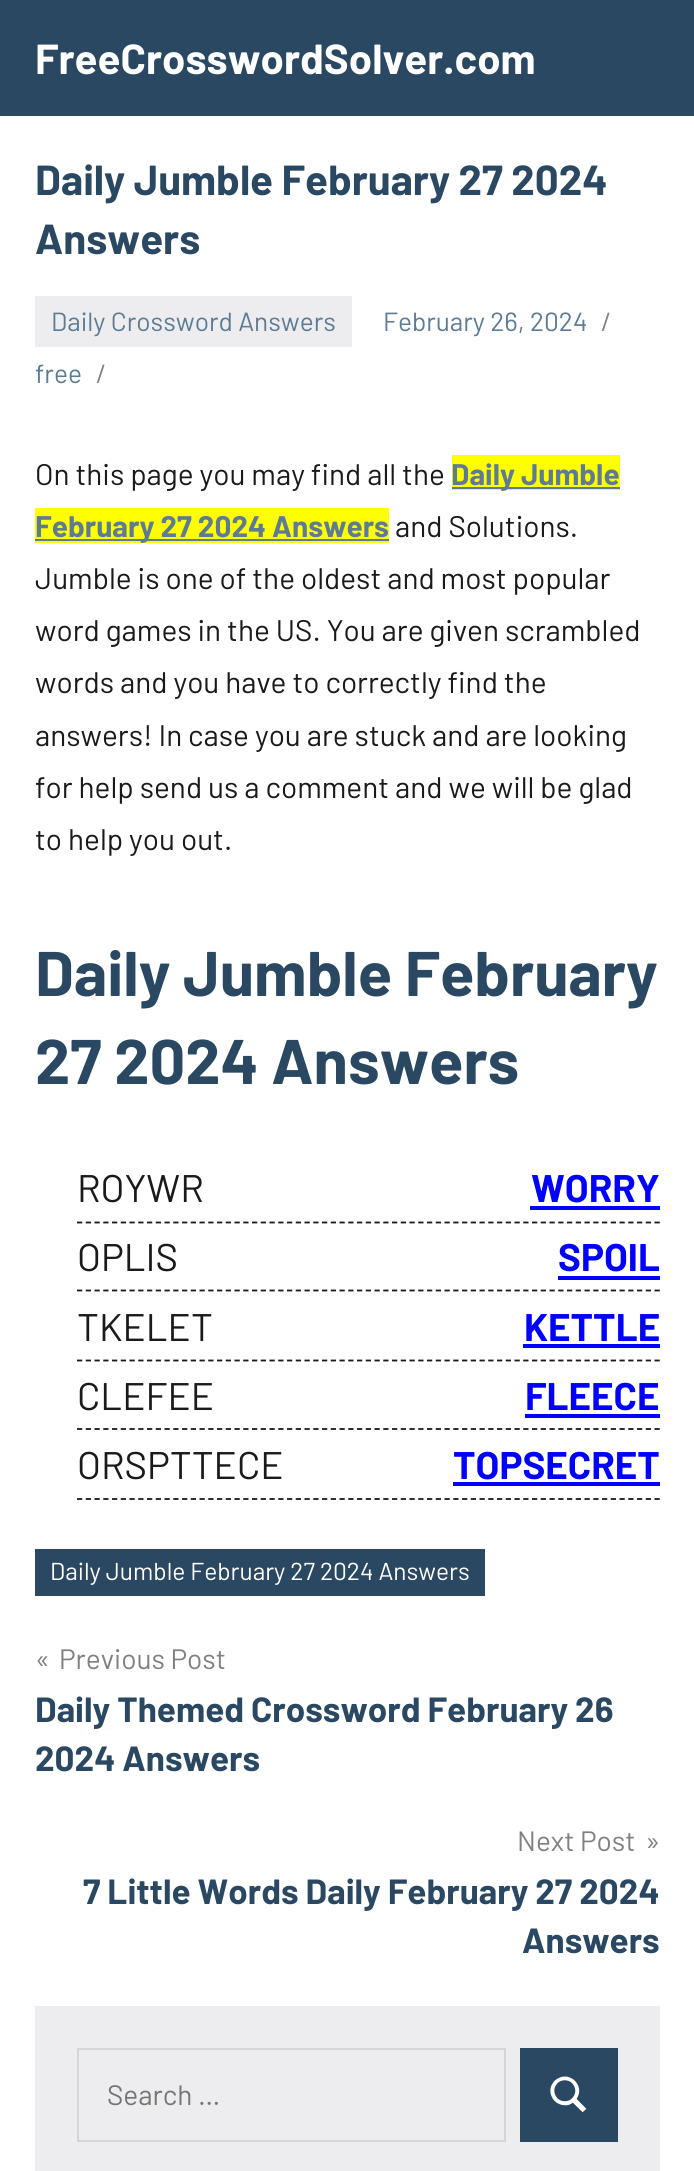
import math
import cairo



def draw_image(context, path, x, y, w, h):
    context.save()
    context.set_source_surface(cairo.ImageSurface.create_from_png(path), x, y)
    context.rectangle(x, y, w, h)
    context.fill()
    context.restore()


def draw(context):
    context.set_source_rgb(42 / 255, 72 / 255, 97 / 255)
    context.paint()
    context.set_source_rgb(1, 1, 1)
    context.rectangle(0, 116, 694, 2055)
    context.fill()
    context.set_source_rgb(237 / 255, 237 / 255, 239 / 255)
    context.rectangle(35, 296, 317, 51)
    context.fill()
    context.set_source_rgb(1, 1, 0)
    context.rectangle(452, 455, 168, 35)
    context.fill()
    context.set_source_rgb(93 / 255, 123 / 255, 148 / 255)
    context.rectangle(452, 487, 168, 2)
    context.fill()
    context.set_source_rgb(1, 1, 0)
    context.rectangle(35, 508, 354, 35)
    context.fill()
    context.set_source_rgb(93 / 255, 123 / 255, 148 / 255)
    context.rectangle(35, 539, 354, 2)
    context.fill()
    context.new_path()
    context.move_to(77, 1222.5)
    context.line_to(660, 1222.5)
    context.set_source_rgb(26 / 255, 26 / 255, 26 / 255)
    context.set_line_width(1.8)
    context.set_dash([5.25, 3.5])
    context.stroke()
    context.set_source_rgb(0, 0, 1)
    context.rectangle(530, 1206, 130, 4)
    context.fill()
    context.new_path()
    context.move_to(77, 1290.5)
    context.line_to(660, 1290.5)
    context.set_source_rgb(26 / 255, 26 / 255, 26 / 255)
    context.stroke()
    context.set_source_rgb(0, 0, 1)
    context.rectangle(558, 1276, 102, 4)
    context.fill()
    context.new_path()
    context.move_to(77, 1360.5)
    context.line_to(660, 1360.5)
    context.set_source_rgb(26 / 255, 26 / 255, 26 / 255)
    context.stroke()
    context.set_source_rgb(0, 0, 1)
    context.rectangle(523, 1344, 137, 4)
    context.fill()
    context.new_path()
    context.move_to(77, 1429)
    context.line_to(660, 1429)
    context.set_source_rgb(26 / 255, 26 / 255, 26 / 255)
    context.stroke()
    context.set_source_rgb(0, 0, 1)
    context.rectangle(525, 1414, 135, 4)
    context.fill()
    context.new_path()
    context.move_to(77, 1499)
    context.line_to(660, 1499)
    context.set_source_rgb(26 / 255, 26 / 255, 26 / 255)
    context.stroke()
    context.set_source_rgb(0, 0, 1)
    context.rectangle(453, 1482, 207, 4)
    context.fill()
    context.set_source_rgb(42 / 255, 72 / 255, 97 / 255)
    context.rectangle(35, 1549, 450, 47)
    context.fill()
    context.set_source_rgb(237 / 255, 237 / 255, 239 / 255)
    context.rectangle(35, 2006, 625, 165)
    context.fill()
    context.rectangle(78, 2049, 427, 92)
    context.set_source_rgb(213 / 255, 213 / 255, 215 / 255)
    context.set_line_width(2)
    context.set_dash([])
    context.stroke()
    context.set_source_rgb(42 / 255, 72 / 255, 97 / 255)
    context.rectangle(520, 2048, 98, 94)
    context.fill()
    draw_image(context, "images/1.png", 550, 2076, 37, 37)
    context.select_font_face("Barlow", cairo.FontSlant.NORMAL, cairo.FontWeight.BOLD)
    context.set_font_size(42)
    context.set_source_rgb(1, 1, 1)
    context.move_to(35, 74)
    context.show_text("FreeCrosswordSolver.com")
    context.set_source_rgb(42 / 255, 72 / 255, 97 / 255)
    context.move_to(35, 195)
    context.show_text("Daily Jumble February 27 2024")
    context.move_to(35, 254)
    context.show_text("Answers")
    context.select_font_face("Barlow")
    context.set_font_size(26.25)
    context.set_source_rgb(93 / 255, 123 / 255, 148 / 255)
    context.move_to(51, 331)
    context.show_text("Daily Crossword Answers")
    context.move_to(383, 331)
    context.show_text("February 26, 2024")
    context.set_source_rgb(128 / 255, 128 / 255, 128 / 255)
    context.move_to(601, 331)
    context.show_text("/")
    context.set_source_rgb(93 / 255, 123 / 255, 148 / 255)
    context.move_to(35, 383)
    context.show_text("free")
    context.set_source_rgb(128 / 255, 128 / 255, 128 / 255)
    context.move_to(96, 383)
    context.show_text("/")
    context.set_font_size(29.75)
    context.set_source_rgb(26 / 255, 26 / 255, 26 / 255)
    context.move_to(35, 485)
    context.show_text("On this page you may find all the")
    context.select_font_face("Barlow", cairo.FontSlant.NORMAL, cairo.FontWeight.BOLD)
    context.set_source_rgb(93 / 255, 123 / 255, 148 / 255)
    context.move_to(451, 485)
    context.show_text("Daily Jumble")
    context.move_to(35, 537)
    context.show_text("February 27 2024 Answers")
    context.select_font_face("Barlow")
    context.set_source_rgb(26 / 255, 26 / 255, 26 / 255)
    context.move_to(395, 537)
    context.show_text("and Solutions.")
    context.move_to(35, 589)
    context.show_text("Jumble is one of the oldest and most popular")
    context.move_to(35, 641)
    context.show_text("word games in the US. You are given scrambled")
    context.move_to(35, 693)
    context.show_text("words and you have to correctly find the")
    context.move_to(35, 746)
    context.show_text("answers! In case you are stuck and are looking")
    context.move_to(35, 798)
    context.show_text("for help send us a comment and we will be glad")
    context.move_to(35, 850)
    context.show_text("to help you out.")
    context.select_font_face("Barlow", cairo.FontSlant.NORMAL, cairo.FontWeight.BOLD)
    context.set_font_size(63)
    context.set_source_rgb(42 / 255, 72 / 255, 97 / 255)
    context.move_to(35, 996)
    context.show_text("Daily Jumble February")
    context.move_to(35, 1084)
    context.show_text("27 2024 Answers")
    context.select_font_face("Barlow")
    context.set_font_size(38.5)
    context.set_source_rgb(26 / 255, 26 / 255, 26 / 255)
    context.move_to(77, 1202)
    context.show_text("ROYWR")
    context.select_font_face("Barlow", cairo.FontSlant.NORMAL, cairo.FontWeight.BOLD)
    context.set_source_rgb(0, 0, 1)
    context.move_to(531, 1202)
    context.show_text("WORRY")
    context.select_font_face("Barlow")
    context.set_source_rgb(26 / 255, 26 / 255, 26 / 255)
    context.move_to(77, 1271)
    context.show_text("OPLIS")
    context.select_font_face("Barlow", cairo.FontSlant.NORMAL, cairo.FontWeight.BOLD)
    context.set_source_rgb(0, 0, 1)
    context.move_to(558, 1271)
    context.show_text("SPOIL")
    context.select_font_face("Barlow")
    context.set_source_rgb(26 / 255, 26 / 255, 26 / 255)
    context.move_to(77, 1341)
    context.show_text("TKELET")
    context.select_font_face("Barlow", cairo.FontSlant.NORMAL, cairo.FontWeight.BOLD)
    context.set_source_rgb(0, 0, 1)
    context.move_to(524, 1341)
    context.show_text("KETTLE")
    context.select_font_face("Barlow")
    context.set_source_rgb(26 / 255, 26 / 255, 26 / 255)
    context.move_to(77, 1410)
    context.show_text("CLEFEE")
    context.select_font_face("Barlow", cairo.FontSlant.NORMAL, cairo.FontWeight.BOLD)
    context.set_source_rgb(0, 0, 1)
    context.move_to(525, 1410)
    context.show_text("FLEECE")
    context.select_font_face("Barlow")
    context.set_source_rgb(26 / 255, 26 / 255, 26 / 255)
    context.move_to(77, 1479)
    context.show_text("ORSPTTECE")
    context.select_font_face("Barlow", cairo.FontSlant.NORMAL, cairo.FontWeight.BOLD)
    context.set_source_rgb(0, 0, 1)
    context.move_to(453, 1479)
    context.show_text("TOPSECRET")
    context.select_font_face("Barlow")
    context.set_font_size(24.5)
    context.set_source_rgb(1, 1, 1)
    context.move_to(50, 1580)
    context.show_text("Daily Jumble February 27 2024 Answers")
    context.set_font_size(28)
    context.set_source_rgb(128 / 255, 128 / 255, 128 / 255)
    context.move_to(35, 1669)
    context.show_text("«")
    context.move_to(59, 1669)
    context.show_text("Previous Post")
    context.select_font_face("Barlow", cairo.FontSlant.NORMAL, cairo.FontWeight.BOLD)
    context.set_font_size(35)
    context.set_source_rgb(42 / 255, 72 / 255, 97 / 255)
    context.move_to(35, 1722)
    context.show_text("Daily Themed Crossword February 26")
    context.move_to(35, 1771)
    context.show_text("2024 Answers")
    context.select_font_face("Barlow")
    context.set_font_size(28)
    context.set_source_rgb(128 / 255, 128 / 255, 128 / 255)
    context.move_to(517, 1851)
    context.show_text("Next Post")
    context.move_to(645, 1851)
    context.show_text("»")
    context.select_font_face("Barlow", cairo.FontSlant.NORMAL, cairo.FontWeight.BOLD)
    context.set_font_size(35)
    context.set_source_rgb(42 / 255, 72 / 255, 97 / 255)
    context.move_to(83, 1904)
    context.show_text("7 Little Words Daily February 27 2024")
    context.move_to(522, 1953)
    context.show_text("Answers")
    context.select_font_face("Barlow")
    context.set_font_size(28)
    context.set_source_rgb(117 / 255, 117 / 255, 117 / 255)
    context.move_to(107, 2105)
    context.show_text("Search …")


surface = cairo.ImageSurface(cairo.Format.RGB24, 694, 2171)
context = cairo.Context(surface)
options = cairo.FontOptions()
options.set_hint_metrics(cairo.HintMetrics.OFF)
options.set_hint_style(cairo.HintStyle.NONE)
context.set_font_options(options)
context.set_miter_limit(4)
draw(context)
surface.write_to_png("out.png")
